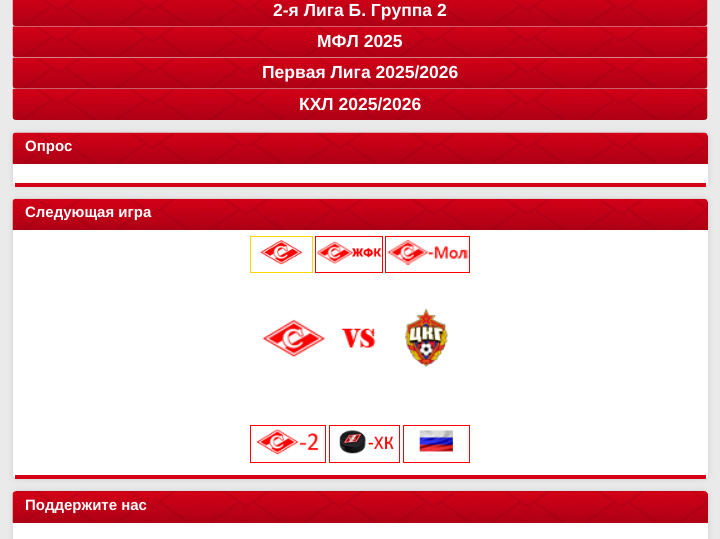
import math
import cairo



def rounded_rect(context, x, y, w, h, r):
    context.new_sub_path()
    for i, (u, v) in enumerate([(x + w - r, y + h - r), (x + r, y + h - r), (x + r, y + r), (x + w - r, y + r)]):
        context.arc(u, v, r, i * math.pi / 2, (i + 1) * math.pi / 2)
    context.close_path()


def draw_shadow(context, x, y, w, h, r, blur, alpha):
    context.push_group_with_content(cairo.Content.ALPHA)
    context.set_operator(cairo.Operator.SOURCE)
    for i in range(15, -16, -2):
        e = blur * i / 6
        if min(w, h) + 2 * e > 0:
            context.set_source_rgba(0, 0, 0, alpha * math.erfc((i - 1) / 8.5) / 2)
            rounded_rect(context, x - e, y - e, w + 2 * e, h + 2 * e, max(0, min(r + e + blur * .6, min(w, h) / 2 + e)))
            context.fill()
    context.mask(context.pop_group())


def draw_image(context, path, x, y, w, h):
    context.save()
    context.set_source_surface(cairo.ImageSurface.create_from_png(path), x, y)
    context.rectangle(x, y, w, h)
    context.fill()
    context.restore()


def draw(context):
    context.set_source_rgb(234 / 255, 234 / 255, 234 / 255)
    context.paint()
    draw_image(context, "images/1.png", 12, 0, 696, 27)
    draw_image(context, "images/2.png", 12, 26, 696, 32)
    draw_image(context, "images/3.png", 12, 57, 696, 32)
    draw_image(context, "images/4.png", 12, 88, 696, 32)
    context.set_source_rgb(208 / 255, 208 / 255, 208 / 255)
    draw_shadow(context, 13, 133, 695, 53, 4, 3, 1)
    context.set_source_rgb(1, 1, 1)
    rounded_rect(context, 13, 133, 695, 53, 4)
    context.fill()
    context.set_source_rgb(214 / 255, 0, 23 / 255)
    context.rectangle(15, 183, 691, 4)
    context.fill()
    context.set_source_rgb(175 / 255, 0, 19 / 255)
    context.new_path()
    context.move_to(17, 133)
    context.line_to(704, 133)
    context.curve_to(706, 133, 708, 135, 708, 137)
    context.line_to(708, 164)
    context.line_to(13, 164)
    context.line_to(13, 137)
    context.curve_to(13, 135, 15, 133, 17, 133)
    context.close_path()
    context.fill()
    draw_image(context, "images/5.png", 12, 132, 696, 32)
    context.set_source_rgb(208 / 255, 208 / 255, 208 / 255)
    draw_shadow(context, 13, 199, 695, 280, 4, 3, 1)
    context.set_source_rgb(1, 1, 1)
    rounded_rect(context, 13, 199, 695, 280, 4)
    context.fill()
    context.set_source_rgb(214 / 255, 0, 23 / 255)
    context.rectangle(15, 475, 691, 4)
    context.fill()
    context.set_source_rgb(175 / 255, 0, 19 / 255)
    context.new_path()
    context.move_to(17, 199)
    context.line_to(704, 199)
    context.curve_to(706, 199, 708, 201, 708, 203)
    context.line_to(708, 230)
    context.line_to(13, 230)
    context.line_to(13, 203)
    context.curve_to(13, 201, 15, 199, 17, 199)
    context.close_path()
    context.fill()
    draw_image(context, "images/6.png", 12, 198, 696, 32)
    context.rectangle(250.5, 236.5, 62, 36)
    context.set_source_rgb(1, 215 / 255, 0)
    context.set_line_width(1)
    context.stroke()
    draw_image(context, "images/7.png", 260, 240, 43, 25)
    context.rectangle(315.5, 236.5, 67, 36)
    context.set_source_rgb(1, 0, 0)
    context.stroke()
    draw_image(context, "images/8.png", 317, 241, 65, 23)
    context.rectangle(385.5, 236.5, 84, 36)
    context.stroke()
    draw_image(context, "images/9.png", 387, 240, 81, 25)
    draw_image(context, "images/10.png", 262, 319, 63, 38)
    draw_image(context, "images/11.png", 341, 328, 35, 20)
    draw_image(context, "images/12.png", 404, 308, 44, 59)
    context.rectangle(250.5, 425.5, 75, 37)
    context.stroke()
    draw_image(context, "images/13.png", 256, 429, 63, 26)
    context.rectangle(329.5, 425.5, 70, 37)
    context.stroke()
    draw_image(context, "images/14.png", 339, 430, 55, 24)
    context.rectangle(403.5, 425.5, 66, 37)
    context.stroke()
    draw_image(context, "images/15.png", 419, 430, 34, 22)
    context.set_source_rgb(208 / 255, 208 / 255, 208 / 255)
    draw_shadow(context, 13, 491, 695, 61, 4, 3, 1)
    context.set_source_rgb(1, 1, 1)
    rounded_rect(context, 13, 491, 695, 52, 4)
    context.fill()
    context.set_source_rgb(175 / 255, 0, 19 / 255)
    context.new_path()
    context.move_to(17, 491)
    context.line_to(704, 491)
    context.curve_to(706, 491, 708, 493, 708, 495)
    context.line_to(708, 523)
    context.line_to(13, 523)
    context.line_to(13, 495)
    context.curve_to(13, 493, 15, 491, 17, 491)
    context.close_path()
    context.fill()
    draw_image(context, "images/16.png", 12, 491, 696, 32)
    context.select_font_face("Liberation Sans", cairo.FontSlant.NORMAL, cairo.FontWeight.BOLD)
    context.set_font_size(17.5)
    context.set_source_rgb(1, 1, 1)
    context.move_to(273, 16)
    context.show_text("2-я Лига Б. Группа 2")
    context.move_to(317, 47)
    context.show_text("МФЛ 2025")
    context.move_to(262, 78)
    context.show_text("Первая Лига 2025/2026")
    context.move_to(299, 110)
    context.show_text("КХЛ 2025/2026")
    context.set_font_size(15)
    context.move_to(25, 151)
    context.show_text("Опрос")
    context.move_to(25, 217)
    context.show_text("Следующая игра")
    context.move_to(25, 510)
    context.show_text("Поддержите нас")


surface = cairo.ImageSurface(cairo.Format.RGB24, 720, 539)
context = cairo.Context(surface)
options = cairo.FontOptions()
options.set_hint_metrics(cairo.HintMetrics.OFF)
options.set_hint_style(cairo.HintStyle.NONE)
context.set_font_options(options)
context.set_miter_limit(4)
draw(context)
surface.write_to_png("out.png")
